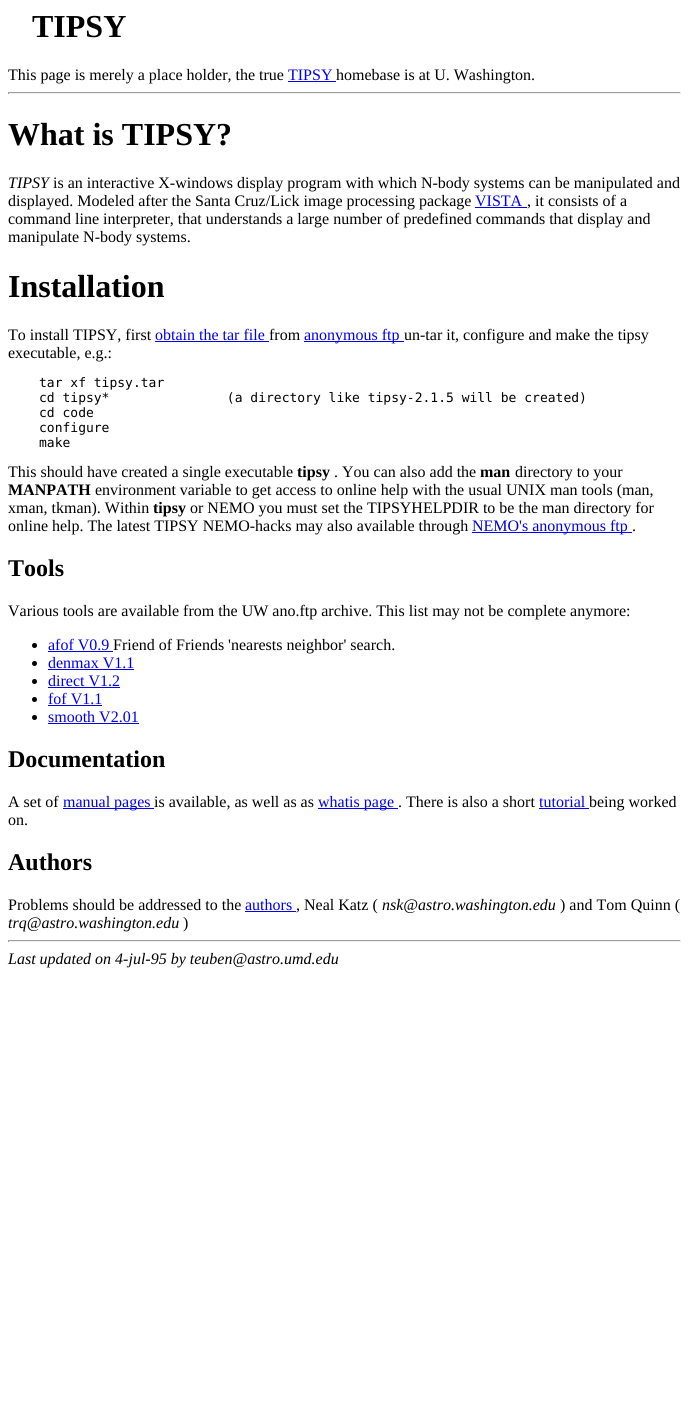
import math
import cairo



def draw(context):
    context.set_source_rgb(1, 1, 1)
    context.paint()
    context.set_source_rgb(0, 0, 238 / 255)
    context.rectangle(288, 81, 48, 1)
    context.fill()
    context.set_source_rgb(159 / 255, 159 / 255, 159 / 255)
    context.rectangle(8, 92, 673, 1)
    context.fill()
    context.set_source_rgb(238 / 255, 238 / 255, 238 / 255)
    context.rectangle(680, 92, 1, 2)
    context.fill()
    context.rectangle(8, 93, 673, 1)
    context.fill()
    context.set_source_rgb(159 / 255, 159 / 255, 159 / 255)
    context.rectangle(8, 92, 1, 2)
    context.fill()
    context.set_source_rgb(0, 0, 238 / 255)
    context.rectangle(475, 207, 52, 1)
    context.fill()
    context.rectangle(155, 341, 114, 1)
    context.fill()
    context.rectangle(304, 341, 100, 1)
    context.fill()
    context.rectangle(472, 532, 160, 1)
    context.fill()
    context.set_source_rgb(0, 0, 0)
    context.arc(34.5, 645.5, 2.5, 0, 2 * math.pi)
    context.fill()
    context.set_source_rgb(0, 0, 238 / 255)
    context.rectangle(48, 651, 65, 1)
    context.fill()
    context.set_source_rgb(0, 0, 0)
    context.arc(34.5, 663.5, 2.5, 0, 2 * math.pi)
    context.fill()
    context.set_source_rgb(0, 0, 238 / 255)
    context.rectangle(48, 669, 86, 1)
    context.fill()
    context.set_source_rgb(0, 0, 0)
    context.arc(34.5, 681.5, 2.5, 0, 2 * math.pi)
    context.fill()
    context.set_source_rgb(0, 0, 238 / 255)
    context.rectangle(48, 687, 72, 1)
    context.fill()
    context.set_source_rgb(0, 0, 0)
    context.arc(34.5, 699.5, 2.5, 0, 2 * math.pi)
    context.fill()
    context.set_source_rgb(0, 0, 238 / 255)
    context.rectangle(48, 705, 54, 1)
    context.fill()
    context.set_source_rgb(0, 0, 0)
    context.arc(34.5, 717.5, 2.5, 0, 2 * math.pi)
    context.fill()
    context.set_source_rgb(0, 0, 238 / 255)
    context.rectangle(48, 723, 91, 1)
    context.fill()
    context.rectangle(63, 808, 91, 1)
    context.fill()
    context.rectangle(318, 808, 80, 1)
    context.fill()
    context.rectangle(539, 808, 50, 1)
    context.fill()
    context.rectangle(245, 911, 51, 1)
    context.fill()
    context.set_source_rgb(159 / 255, 159 / 255, 159 / 255)
    context.rectangle(8, 940, 673, 1)
    context.fill()
    context.set_source_rgb(238 / 255, 238 / 255, 238 / 255)
    context.rectangle(680, 940, 1, 2)
    context.fill()
    context.rectangle(8, 941, 673, 1)
    context.fill()
    context.set_source_rgb(159 / 255, 159 / 255, 159 / 255)
    context.rectangle(8, 940, 1, 2)
    context.fill()
    context.select_font_face("Liberation Serif", cairo.FontSlant.NORMAL, cairo.FontWeight.BOLD)
    context.set_font_size(32)
    context.set_source_rgb(0, 0, 0)
    context.move_to(32, 37)
    context.show_text("TIPSY")
    context.select_font_face("Liberation Serif")
    context.set_font_size(16)
    context.move_to(8, 80)
    context.show_text("This page is merely a place holder, the true")
    context.set_source_rgb(0, 0, 238 / 255)
    context.move_to(288, 80)
    context.show_text("TIPSY")
    context.set_source_rgb(0, 0, 0)
    context.move_to(336, 80)
    context.show_text("homebase is at U. Washington.")
    context.select_font_face("Liberation Serif", cairo.FontSlant.NORMAL, cairo.FontWeight.BOLD)
    context.set_font_size(32)
    context.move_to(8, 145)
    context.show_text("What is TIPSY?")
    context.select_font_face("Liberation Serif", cairo.FontSlant.ITALIC)
    context.set_font_size(16)
    context.move_to(8, 188)
    context.show_text("TIPSY")
    context.select_font_face("Liberation Serif")
    context.move_to(53, 188)
    context.show_text("is an interactive X-windows display program with which N-body systems can be manipulated and")
    context.move_to(8, 206)
    context.show_text("displayed. Modeled after the Santa Cruz/Lick image processing package")
    context.set_source_rgb(0, 0, 238 / 255)
    context.move_to(475, 206)
    context.show_text("VISTA")
    context.set_source_rgb(0, 0, 0)
    context.move_to(527, 206)
    context.show_text(", it consists of a")
    context.move_to(8, 224)
    context.show_text("command line interpreter, that understands a large number of predefined commands that display and")
    context.move_to(8, 242)
    context.show_text("manipulate N-body systems.")
    context.select_font_face("Liberation Serif", cairo.FontSlant.NORMAL, cairo.FontWeight.BOLD)
    context.set_font_size(32)
    context.move_to(8, 297)
    context.show_text("Installation")
    context.select_font_face("Liberation Serif")
    context.set_font_size(16)
    context.move_to(8, 340)
    context.show_text("To install TIPSY, first")
    context.set_source_rgb(0, 0, 238 / 255)
    context.move_to(155, 340)
    context.show_text("obtain the tar file")
    context.set_source_rgb(0, 0, 0)
    context.move_to(269, 340)
    context.show_text("from")
    context.set_source_rgb(0, 0, 238 / 255)
    context.move_to(304, 340)
    context.show_text("anonymous ftp")
    context.set_source_rgb(0, 0, 0)
    context.move_to(404, 340)
    context.show_text("un-tar it, configure and make the tipsy")
    context.move_to(8, 358)
    context.show_text("executable, e.g.:")
    context.select_font_face("DejaVu Sans Mono")
    context.set_font_size(13)
    context.move_to(39, 387)
    context.show_text("tar xf tipsy.tar")
    context.move_to(39, 402)
    context.show_text("cd tipsy*               (a directory like tipsy-2.1.5 will be created)")
    context.move_to(39, 417)
    context.show_text("cd code")
    context.move_to(39, 432)
    context.show_text("configure")
    context.move_to(39, 447)
    context.show_text("make")
    context.select_font_face("Liberation Serif")
    context.set_font_size(16)
    context.move_to(8, 477)
    context.show_text("This should have created a single executable")
    context.select_font_face("Liberation Serif", cairo.FontSlant.NORMAL, cairo.FontWeight.BOLD)
    context.move_to(297, 477)
    context.show_text("tipsy")
    context.select_font_face("Liberation Serif")
    context.move_to(334, 477)
    context.show_text(". You can also add the")
    context.select_font_face("Liberation Serif", cairo.FontSlant.NORMAL, cairo.FontWeight.BOLD)
    context.move_to(480, 477)
    context.show_text("man")
    context.select_font_face("Liberation Serif")
    context.move_to(515, 477)
    context.show_text("directory to your")
    context.select_font_face("Liberation Serif", cairo.FontSlant.NORMAL, cairo.FontWeight.BOLD)
    context.move_to(8, 495)
    context.show_text("MANPATH")
    context.select_font_face("Liberation Serif")
    context.move_to(95, 495)
    context.show_text("environment variable to get access to online help with the usual UNIX man tools (man,")
    context.move_to(8, 513)
    context.show_text("xman, tkman). Within")
    context.select_font_face("Liberation Serif", cairo.FontSlant.NORMAL, cairo.FontWeight.BOLD)
    context.move_to(153, 513)
    context.show_text("tipsy")
    context.select_font_face("Liberation Serif")
    context.move_to(190, 513)
    context.show_text("or NEMO you must set the TIPSYHELPDIR to be the man directory for")
    context.move_to(8, 531)
    context.show_text("online help. The latest TIPSY NEMO-hacks may also available through")
    context.set_source_rgb(0, 0, 238 / 255)
    context.move_to(472, 531)
    context.show_text("NEMO's anonymous ftp")
    context.set_source_rgb(0, 0, 0)
    context.move_to(632, 531)
    context.show_text(".")
    context.select_font_face("Liberation Serif", cairo.FontSlant.NORMAL, cairo.FontWeight.BOLD)
    context.set_font_size(24)
    context.move_to(8, 576)
    context.show_text("Tools")
    context.select_font_face("Liberation Serif")
    context.set_font_size(16)
    context.move_to(8, 616)
    context.show_text("Various tools are available from the UW ano.ftp archive. This list may not be complete anymore:")
    context.set_source_rgb(0, 0, 238 / 255)
    context.move_to(48, 650)
    context.show_text("afof V0.9")
    context.set_source_rgb(0, 0, 0)
    context.move_to(113, 650)
    context.show_text("Friend of Friends 'nearests neighbor' search.")
    context.set_source_rgb(0, 0, 238 / 255)
    context.move_to(48, 668)
    context.show_text("denmax V1.1")
    context.move_to(48, 686)
    context.show_text("direct V1.2")
    context.move_to(48, 704)
    context.show_text("fof V1.1")
    context.move_to(48, 722)
    context.show_text("smooth V2.01")
    context.select_font_face("Liberation Serif", cairo.FontSlant.NORMAL, cairo.FontWeight.BOLD)
    context.set_font_size(24)
    context.set_source_rgb(0, 0, 0)
    context.move_to(8, 767)
    context.show_text("Documentation")
    context.select_font_face("Liberation Serif")
    context.set_font_size(16)
    context.move_to(8, 807)
    context.show_text("A set of")
    context.set_source_rgb(0, 0, 238 / 255)
    context.move_to(63, 807)
    context.show_text("manual pages")
    context.set_source_rgb(0, 0, 0)
    context.move_to(154, 807)
    context.show_text("is available, as well as as")
    context.set_source_rgb(0, 0, 238 / 255)
    context.move_to(318, 807)
    context.show_text("whatis page")
    context.set_source_rgb(0, 0, 0)
    context.move_to(398, 807)
    context.show_text(". There is also a short")
    context.set_source_rgb(0, 0, 238 / 255)
    context.move_to(539, 807)
    context.show_text("tutorial")
    context.set_source_rgb(0, 0, 0)
    context.move_to(589, 807)
    context.show_text("being worked")
    context.move_to(8, 825)
    context.show_text("on.")
    context.select_font_face("Liberation Serif", cairo.FontSlant.NORMAL, cairo.FontWeight.BOLD)
    context.set_font_size(24)
    context.move_to(8, 870)
    context.show_text("Authors")
    context.select_font_face("Liberation Serif")
    context.set_font_size(16)
    context.move_to(8, 910)
    context.show_text("Problems should be addressed to the")
    context.set_source_rgb(0, 0, 238 / 255)
    context.move_to(245, 910)
    context.show_text("authors")
    context.set_source_rgb(0, 0, 0)
    context.move_to(296, 910)
    context.show_text(", Neal Katz (")
    context.select_font_face("Liberation Serif", cairo.FontSlant.ITALIC)
    context.move_to(382, 910)
    context.show_text("nsk@astro.washington.edu")
    context.select_font_face("Liberation Serif")
    context.move_to(560, 910)
    context.show_text(") and Tom Quinn (")
    context.select_font_face("Liberation Serif", cairo.FontSlant.ITALIC)
    context.move_to(8, 928)
    context.show_text("trq@astro.washington.edu")
    context.select_font_face("Liberation Serif")
    context.move_to(183, 928)
    context.show_text(")")
    context.select_font_face("Liberation Serif", cairo.FontSlant.ITALIC)
    context.move_to(8, 964)
    context.show_text("Last updated on 4-jul-95 by teuben@astro.umd.edu")


surface = cairo.ImageSurface(cairo.Format.RGB24, 689, 1401)
context = cairo.Context(surface)
options = cairo.FontOptions()
options.set_hint_metrics(cairo.HintMetrics.OFF)
options.set_hint_style(cairo.HintStyle.NONE)
context.set_font_options(options)
context.set_miter_limit(4)
draw(context)
surface.write_to_png("out.png")
